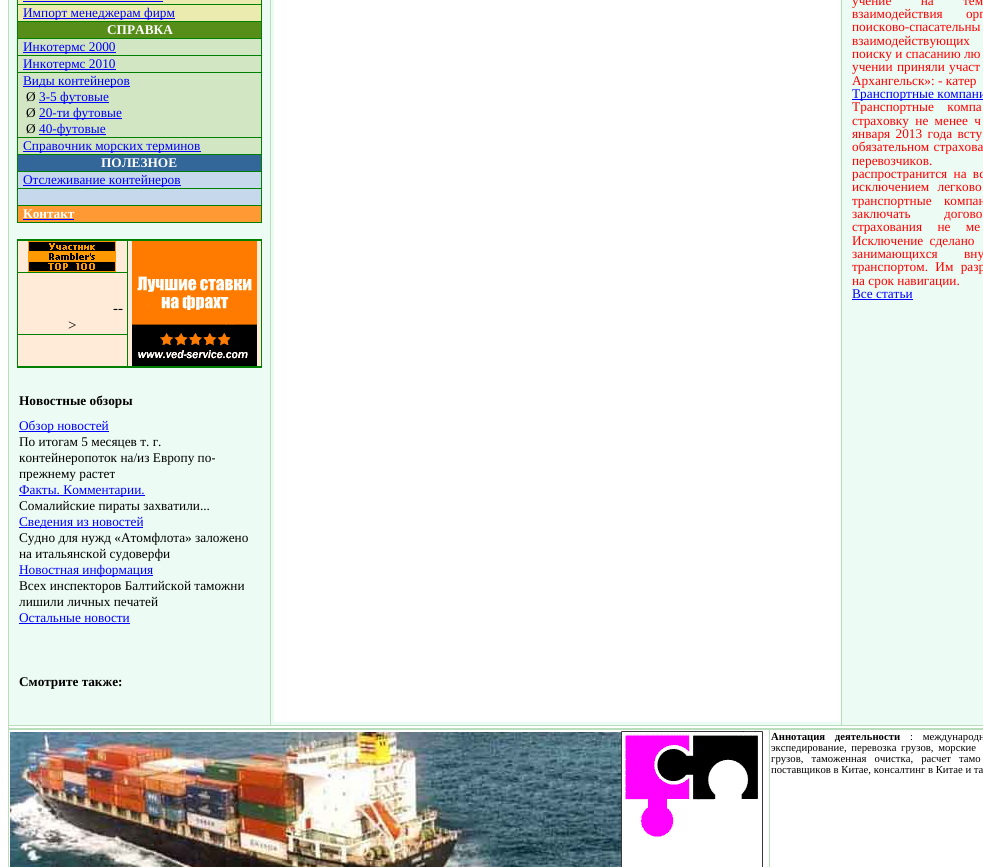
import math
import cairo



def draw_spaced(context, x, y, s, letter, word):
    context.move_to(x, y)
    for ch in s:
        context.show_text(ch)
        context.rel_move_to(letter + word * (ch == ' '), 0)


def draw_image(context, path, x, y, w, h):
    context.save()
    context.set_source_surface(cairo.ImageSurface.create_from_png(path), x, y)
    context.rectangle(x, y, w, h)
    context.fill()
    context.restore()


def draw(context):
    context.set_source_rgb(1, 1, 1)
    context.paint()
    context.set_source_rgb(185 / 255, 222 / 255, 188 / 255)
    context.rectangle(8, 728, 975, 2)
    context.fill()
    context.rectangle(8, 0, 1, 867)
    context.fill()
    context.set_source_rgb(236 / 255, 251 / 255, 244 / 255)
    context.rectangle(9, 0, 261, 725)
    context.fill()
    context.set_source_rgb(235 / 255, 235 / 255, 175 / 255)
    context.rectangle(18, 0, 244, 4)
    context.fill()
    context.set_source_rgb(0, 128 / 255, 0)
    context.rectangle(261, 0, 1, 223)
    context.fill()
    context.rectangle(17, 222, 245, 1)
    context.fill()
    context.rectangle(17, 0, 1, 223)
    context.fill()
    context.set_source_rgb(0, 0, 1)
    context.rectangle(23, 1, 140, 1)
    context.fill()
    context.set_source_rgb(235 / 255, 235 / 255, 175 / 255)
    context.rectangle(18, 5, 243, 16)
    context.fill()
    context.set_source_rgb(0, 128 / 255, 0)
    context.rectangle(17, 4, 245, 1)
    context.fill()
    context.set_source_rgb(0, 0, 1)
    context.rectangle(23, 18, 152, 1)
    context.fill()
    context.set_source_rgb(87 / 255, 142 / 255, 25 / 255)
    context.rectangle(18, 22, 243, 16)
    context.fill()
    context.set_source_rgb(0, 128 / 255, 0)
    context.rectangle(17, 21, 245, 1)
    context.fill()
    context.set_source_rgb(211 / 255, 230 / 255, 196 / 255)
    context.rectangle(18, 39, 243, 16)
    context.fill()
    context.set_source_rgb(0, 128 / 255, 0)
    context.rectangle(17, 38, 245, 1)
    context.fill()
    context.set_source_rgb(0, 0, 1)
    context.rectangle(23, 52, 93, 1)
    context.fill()
    context.set_source_rgb(211 / 255, 230 / 255, 196 / 255)
    context.rectangle(18, 56, 243, 16)
    context.fill()
    context.set_source_rgb(0, 128 / 255, 0)
    context.rectangle(17, 55, 245, 1)
    context.fill()
    context.set_source_rgb(0, 0, 1)
    context.rectangle(23, 69, 93, 1)
    context.fill()
    context.set_source_rgb(211 / 255, 230 / 255, 196 / 255)
    context.rectangle(18, 73, 243, 64)
    context.fill()
    context.set_source_rgb(0, 128 / 255, 0)
    context.rectangle(17, 72, 245, 1)
    context.fill()
    context.set_source_rgb(0, 0, 1)
    context.rectangle(23, 86, 107, 1)
    context.fill()
    context.rectangle(39, 102, 70, 1)
    context.fill()
    context.rectangle(39, 118, 83, 1)
    context.fill()
    context.rectangle(39, 134, 67, 1)
    context.fill()
    context.set_source_rgb(211 / 255, 230 / 255, 196 / 255)
    context.rectangle(18, 138, 243, 16)
    context.fill()
    context.set_source_rgb(0, 128 / 255, 0)
    context.rectangle(17, 137, 245, 1)
    context.fill()
    context.set_source_rgb(0, 0, 1)
    context.rectangle(23, 151, 178, 1)
    context.fill()
    context.set_source_rgb(51 / 255, 102 / 255, 153 / 255)
    context.rectangle(18, 155, 243, 16)
    context.fill()
    context.set_source_rgb(0, 128 / 255, 0)
    context.rectangle(17, 154, 245, 1)
    context.fill()
    context.set_source_rgb(198 / 255, 217 / 255, 236 / 255)
    context.rectangle(18, 172, 243, 16)
    context.fill()
    context.set_source_rgb(0, 128 / 255, 0)
    context.rectangle(17, 171, 245, 1)
    context.fill()
    context.set_source_rgb(0, 0, 1)
    context.rectangle(23, 185, 158, 1)
    context.fill()
    context.set_source_rgb(198 / 255, 217 / 255, 236 / 255)
    context.rectangle(18, 189, 243, 16)
    context.fill()
    context.set_source_rgb(0, 128 / 255, 0)
    context.rectangle(17, 188, 245, 1)
    context.fill()
    context.set_source_rgb(1, 153 / 255, 51 / 255)
    context.rectangle(18, 206, 243, 16)
    context.fill()
    context.set_source_rgb(0, 128 / 255, 0)
    context.rectangle(17, 205, 245, 1)
    context.fill()
    context.set_source_rgb(0, 0, 1)
    context.rectangle(23, 219, 51, 1)
    context.fill()
    context.set_source_rgb(0, 128 / 255, 0)
    context.rectangle(17, 239, 245, 1)
    context.fill()
    context.rectangle(261, 239, 1, 129)
    context.fill()
    context.rectangle(17, 367, 245, 1)
    context.fill()
    context.rectangle(17, 239, 1, 129)
    context.fill()
    context.set_source_rgb(1, 235 / 255, 215 / 255)
    context.rectangle(18, 241, 109, 31)
    context.fill()
    context.set_source_rgb(0, 128 / 255, 0)
    context.rectangle(127, 240, 135, 1)
    context.fill()
    context.rectangle(17, 272, 111, 1)
    context.fill()
    context.rectangle(17, 334, 111, 1)
    context.fill()
    context.rectangle(17, 366, 245, 1)
    context.fill()
    context.rectangle(127, 240, 1, 127)
    context.fill()
    context.rectangle(17, 240, 111, 1)
    context.fill()
    draw_image(context, "images/1.png", 28, 241, 88, 31)
    context.set_source_rgb(1, 235 / 255, 215 / 255)
    context.rectangle(128, 241, 133, 125)
    context.fill()
    draw_image(context, "images/2.png", 132, 241, 125, 125)
    context.rectangle(18, 273, 109, 61)
    context.fill()
    context.rectangle(18, 335, 109, 31)
    context.fill()
    context.set_source_rgb(0, 0, 1)
    context.rectangle(19, 431, 90, 1)
    context.fill()
    context.rectangle(19, 495, 126, 1)
    context.fill()
    context.rectangle(19, 527, 124, 1)
    context.fill()
    context.rectangle(19, 575, 134, 1)
    context.fill()
    context.rectangle(19, 623, 111, 1)
    context.fill()
    context.set_source_rgb(236 / 255, 251 / 255, 244 / 255)
    context.rectangle(271, 0, 570, 725)
    context.fill()
    context.set_source_rgb(185 / 255, 222 / 255, 188 / 255)
    context.rectangle(8, 725, 975, 1)
    context.fill()
    context.rectangle(270, 0, 1, 726)
    context.fill()
    context.set_source_rgb(1, 1, 1)
    context.rectangle(274, 0, 567, 722)
    context.fill()
    context.set_source_rgb(236 / 255, 251 / 255, 244 / 255)
    context.rectangle(842, 0, 141, 725)
    context.fill()
    context.set_source_rgb(185 / 255, 222 / 255, 188 / 255)
    context.rectangle(841, 0, 1, 726)
    context.fill()
    context.set_source_rgb(0, 0, 1)
    context.rectangle(852, 99, 131, 1)
    context.fill()
    context.rectangle(852, 299, 61, 1)
    context.fill()
    draw_image(context, "images/3.png", 10, 732, 611, 135)
    draw_image(context, "images/4.png", 621, 731, 142, 136)
    context.set_source_rgb(185 / 255, 222 / 255, 188 / 255)
    context.rectangle(769, 729, 1, 138)
    context.fill()
    context.select_font_face("Liberation Serif")
    context.set_font_size(13.3)
    context.set_source_rgb(0, 0, 1)
    context.move_to(23, 17)
    context.show_text("Импорт менеджерам фирм")
    context.select_font_face("Liberation Serif", cairo.FontSlant.NORMAL, cairo.FontWeight.BOLD)
    context.set_source_rgb(1, 1, 1)
    context.move_to(107, 34)
    context.show_text("СПРАВКА")
    context.select_font_face("Liberation Serif")
    context.set_source_rgb(0, 0, 1)
    context.move_to(23, 51)
    context.show_text("Инкотермс 2000")
    context.move_to(23, 68)
    context.show_text("Инкотермс 2010")
    context.move_to(23, 85)
    context.show_text("Виды контейнеров")
    context.set_source_rgb(0, 0, 0)
    context.move_to(26, 101)
    context.show_text("Ø")
    context.set_source_rgb(0, 0, 1)
    context.move_to(39, 101)
    context.show_text("3-5 футовые")
    context.set_source_rgb(0, 0, 0)
    context.move_to(26, 117)
    context.show_text("Ø")
    context.set_source_rgb(0, 0, 1)
    context.move_to(39, 117)
    context.show_text("20-ти футовые")
    context.set_source_rgb(0, 0, 0)
    context.move_to(26, 133)
    context.show_text("Ø")
    context.set_source_rgb(0, 0, 1)
    context.move_to(39, 133)
    context.show_text("40-футовые")
    context.move_to(23, 150)
    context.show_text("Справочник морских терминов")
    context.select_font_face("Liberation Serif", cairo.FontSlant.NORMAL, cairo.FontWeight.BOLD)
    context.set_source_rgb(1, 1, 1)
    context.move_to(101, 167)
    context.show_text("ПОЛЕЗНОЕ")
    context.select_font_face("Liberation Serif")
    context.set_source_rgb(0, 0, 1)
    context.move_to(23, 184)
    context.show_text("Отслеживание контейнеров")
    context.select_font_face("Liberation Serif", cairo.FontSlant.NORMAL, cairo.FontWeight.BOLD)
    context.set_source_rgb(1, 1, 1)
    context.move_to(23, 218)
    context.show_text("Контакт")
    context.select_font_face("Liberation Serif")
    context.set_font_size(15)
    context.set_source_rgb(0, 0, 0)
    context.move_to(113, 313)
    context.show_text("--")
    context.move_to(68, 330)
    context.show_text(">")
    context.select_font_face("Liberation Serif", cairo.FontSlant.NORMAL, cairo.FontWeight.BOLD)
    context.set_font_size(13.3)
    context.move_to(19, 405)
    context.show_text("Новостные обзоры")
    context.select_font_face("Liberation Serif")
    context.set_source_rgb(0, 0, 1)
    context.move_to(19, 430)
    context.show_text("Обзор новостей")
    context.set_source_rgb(0, 0, 0)
    context.move_to(19, 446)
    context.show_text("По итогам 5 месяцев т. г.")
    context.move_to(19, 462)
    context.show_text("контейнеропоток на/из Европу по-")
    context.move_to(19, 478)
    context.show_text("прежнему растет")
    context.set_source_rgb(0, 0, 1)
    context.move_to(19, 494)
    context.show_text("Факты. Комментарии.")
    context.set_source_rgb(0, 0, 0)
    context.move_to(19, 510)
    context.show_text("Сомалийские пираты захватили...")
    context.set_source_rgb(0, 0, 1)
    context.move_to(19, 526)
    context.show_text("Сведения из новостей")
    context.set_source_rgb(0, 0, 0)
    context.move_to(19, 542)
    context.show_text("Судно для нужд «Атомфлота» заложено")
    context.move_to(19, 558)
    context.show_text("на итальянской судоверфи")
    context.set_source_rgb(0, 0, 1)
    context.move_to(19, 574)
    context.show_text("Новостная информация")
    context.set_source_rgb(0, 0, 0)
    context.move_to(19, 590)
    context.show_text("Всех инспекторов Балтийской таможни")
    context.move_to(19, 606)
    context.show_text("лишили личных печатей")
    context.set_source_rgb(0, 0, 1)
    context.move_to(19, 622)
    context.show_text("Остальные новости")
    context.select_font_face("Liberation Serif", cairo.FontSlant.NORMAL, cairo.FontWeight.BOLD)
    context.set_source_rgb(0, 0, 0)
    context.move_to(19, 686)
    context.show_text("Смотрите также:")
    context.select_font_face("Liberation Serif")
    context.set_source_rgb(1, 0, 0)
    draw_spaced(context, 852, 5, "учение на тем", 0, 26)
    draw_spaced(context, 852, 18, "взаимодействия орг", 0, 20)
    draw_spaced(context, 852, 31, "поисково-спасательны", 0, 12)
    draw_spaced(context, 852, 45, "взаимодействующих", 0, 21)
    context.move_to(852, 58)
    context.show_text("поиску и спасанию лю")
    draw_spaced(context, 852, 71, "учении приняли участ", 0, 1)
    context.move_to(852, 85)
    context.show_text("Архангельск»: - катер")
    context.set_source_rgb(0, 0, 1)
    context.move_to(852, 98)
    context.show_text("Транспортные компани")
    context.set_source_rgb(1, 0, 0)
    draw_spaced(context, 852, 111, "Транспортные компа", 0, 10)
    draw_spaced(context, 852, 125, "страховку не менее ч", 0, 3)
    draw_spaced(context, 852, 138, "января 2013 года всту", 0, 2)
    draw_spaced(context, 852, 151, "обязательном страхова", 0, 1)
    draw_spaced(context, 852, 165, "перевозчиков.", 0, 47)
    draw_spaced(context, 852, 178, "распространится на вс", 0, 3)
    draw_spaced(context, 852, 191, "исключением легково", 0, 5)
    draw_spaced(context, 852, 205, "транспортные компан", 0, 9)
    draw_spaced(context, 852, 218, "заключать догово", 0, 30)
    draw_spaced(context, 852, 231, "страхования не ме", 0, 12)
    draw_spaced(context, 852, 245, "Исключение сделано", 0, 3)
    draw_spaced(context, 852, 258, "занимающихся вну", 0, 23)
    draw_spaced(context, 852, 271, "транспортом. Им разр", 0, 4)
    context.move_to(852, 285)
    context.show_text("на срок навигации.")
    context.set_source_rgb(0, 0, 1)
    context.move_to(852, 298)
    context.show_text("Все статьи")
    context.select_font_face("Liberation Serif", cairo.FontSlant.NORMAL, cairo.FontWeight.BOLD)
    context.set_font_size(10.7)
    context.set_source_rgb(0, 0, 0)
    draw_spaced(context, 771, 740, "Аннотация деятельности", 0, 7)
    context.select_font_face("Liberation Serif")
    draw_spaced(context, 910, 740, ": международн", 0, 7)
    draw_spaced(context, 771, 751, "экспедирование, перевозка грузов, морские", 0, 2)
    draw_spaced(context, 771, 762, "грузов, таможенная очистка, расчет тамо", 0, 5.5)
    context.move_to(771, 773)
    context.show_text("поставщиков в Китае, консалтинг в Китае и та")


surface = cairo.ImageSurface(cairo.Format.RGB24, 983, 867)
context = cairo.Context(surface)
options = cairo.FontOptions()
options.set_hint_metrics(cairo.HintMetrics.OFF)
options.set_hint_style(cairo.HintStyle.NONE)
context.set_font_options(options)
context.set_miter_limit(4)
draw(context)
surface.write_to_png("out.png")
